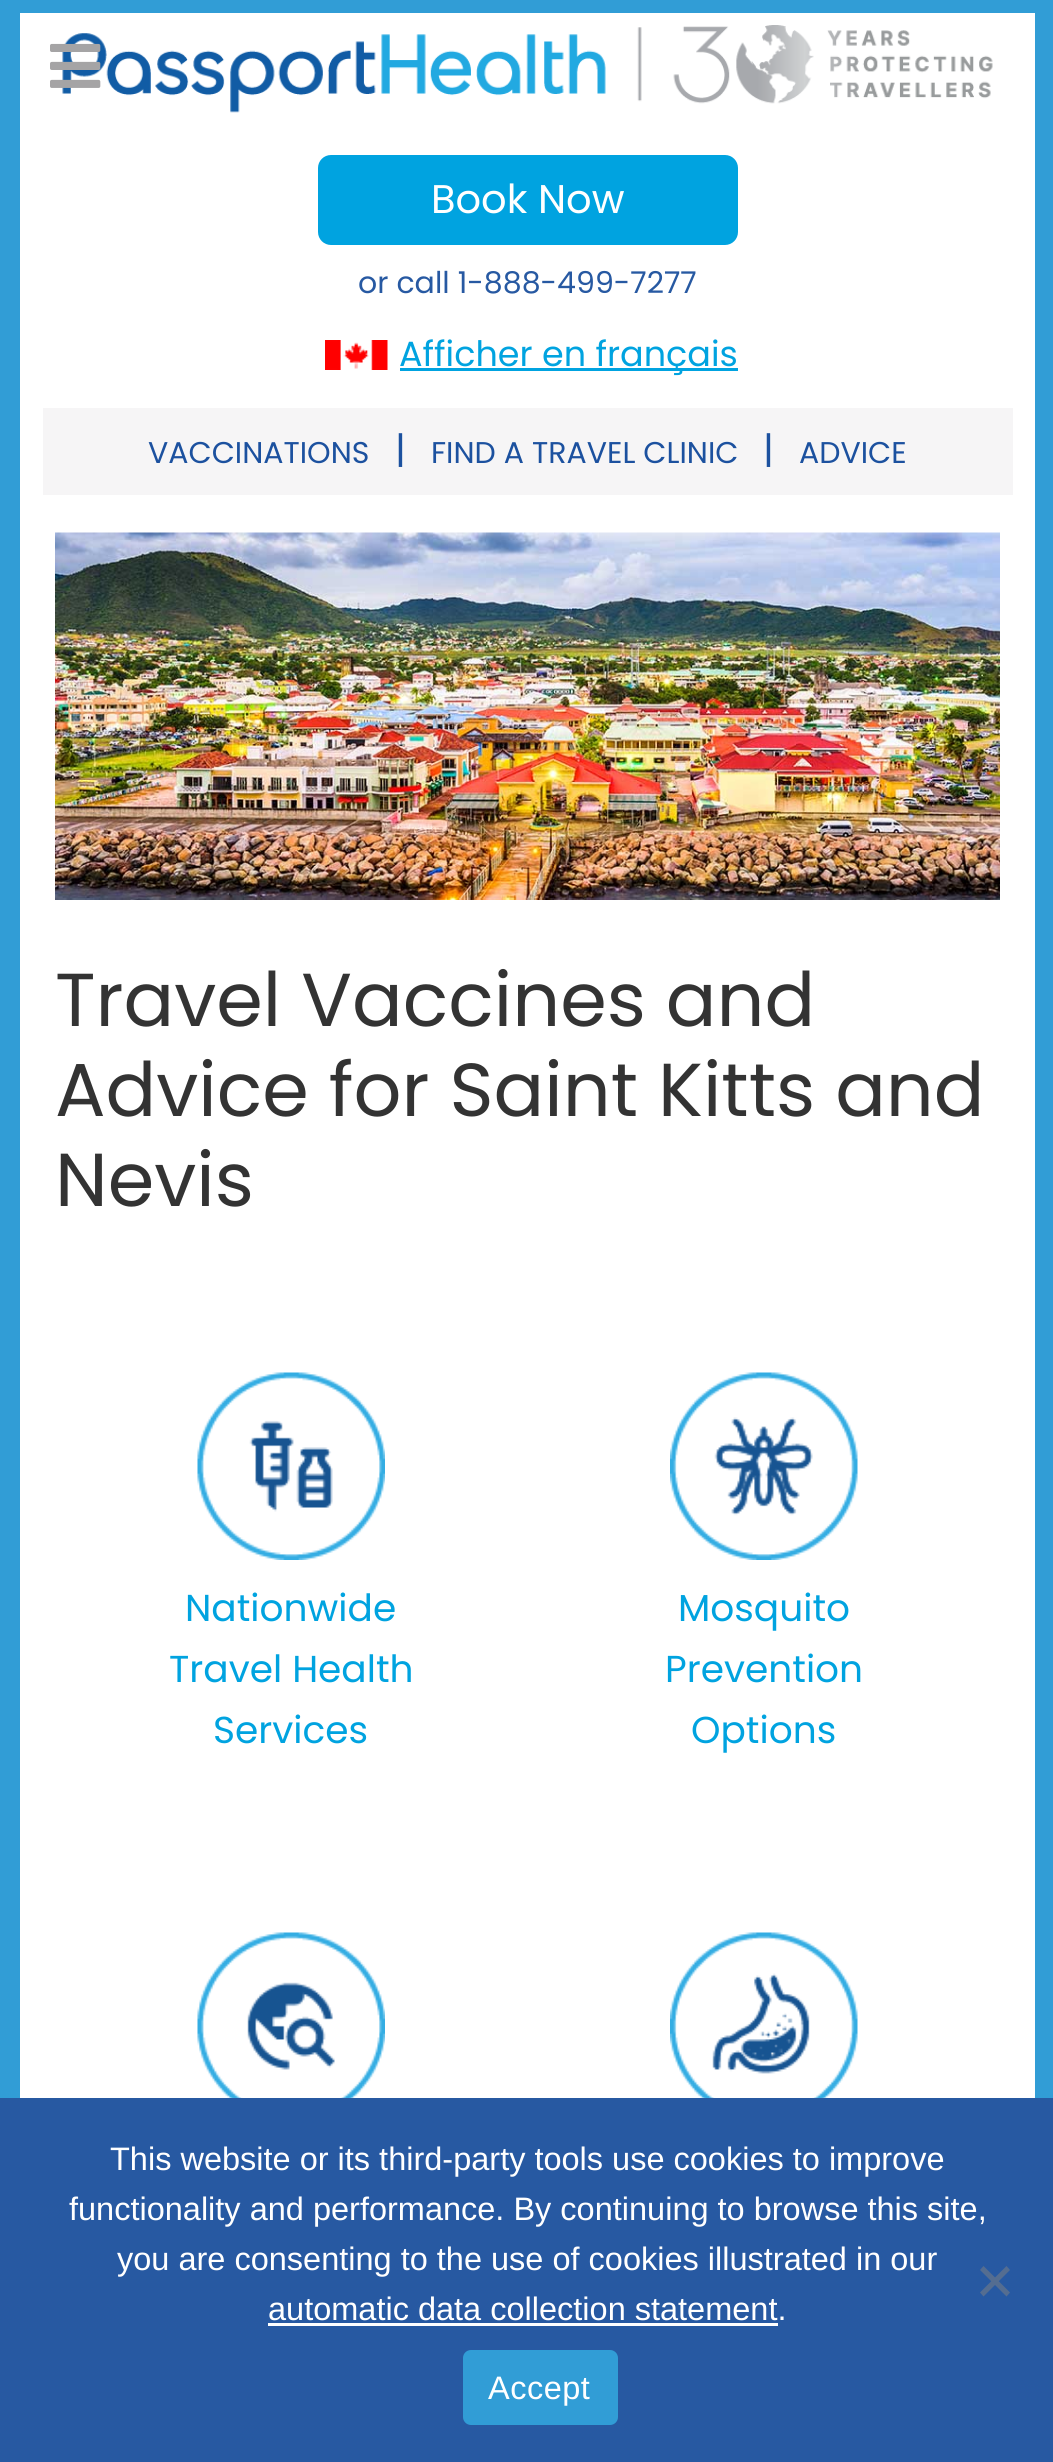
import math
import cairo



def draw_spaced(context, x, y, s, letter, word):
    context.move_to(x, y)
    for ch in s:
        context.show_text(ch)
        context.rel_move_to(letter + word * (ch == ' '), 0)


def rounded_rect(context, x, y, w, h, r):
    context.new_sub_path()
    for i, (u, v) in enumerate([(x + w - r, y + h - r), (x + r, y + h - r), (x + r, y + r), (x + w - r, y + r)]):
        context.arc(u, v, r, i * math.pi / 2, (i + 1) * math.pi / 2)
    context.close_path()


def draw_image(context, path, x, y, w, h):
    context.save()
    context.set_source_surface(cairo.ImageSurface.create_from_png(path), x, y)
    context.rectangle(x, y, w, h)
    context.fill()
    context.restore()


def draw(context):
    context.set_source_rgb(49 / 255, 157 / 255, 214 / 255)
    context.paint()
    context.set_source_rgb(1, 1, 1)
    context.rectangle(20, 13, 1015, 2085)
    context.fill()
    draw_image(context, "images/2.png", 62, 25, 931, 88)
    draw_image(context, "images/1.png", 50, 43, 51, 45)
    context.set_source_rgb(0, 163 / 255, 224 / 255)
    rounded_rect(context, 318, 155, 420, 90, 13)
    context.fill()
    draw_image(context, "images/3.png", 325, 340, 63, 30)
    context.rectangle(400, 368, 338, 3)
    context.fill()
    context.set_source_rgb(246 / 255, 245 / 255, 246 / 255)
    context.rectangle(43, 408, 970, 87)
    context.fill()
    draw_image(context, "images/4.png", 55, 532, 945, 368)
    draw_image(context, "images/5.png", 197, 1372, 188, 188)
    draw_image(context, "images/6.png", 670, 1372, 188, 188)
    draw_image(context, "images/7.png", 197, 1932, 188, 166)
    draw_image(context, "images/8.png", 670, 1932, 188, 166)
    context.set_source_rgb(39 / 255, 89 / 255, 162 / 255)
    context.rectangle(0, 2098, 1053, 364)
    context.fill()
    context.set_source_rgb(1, 1, 1)
    context.rectangle(268, 2323, 510, 3)
    context.fill()
    context.set_source_rgb(84 / 255, 109 / 255, 145 / 255)
    context.new_path()
    context.move_to(1006.5, 2266)
    context.line_to(1010, 2270)
    context.line_to(983.5, 2296.5)
    context.line_to(980, 2292.5)
    context.close_path()
    context.fill()
    context.new_path()
    context.move_to(980, 2270)
    context.line_to(983.5, 2266)
    context.line_to(1010, 2292.5)
    context.line_to(1006.5, 2296.5)
    context.close_path()
    context.fill()
    context.set_source_rgb(49 / 255, 157 / 255, 214 / 255)
    rounded_rect(context, 463, 2350, 155, 75, 8)
    context.fill()
    context.select_font_face("Poppins")
    context.set_font_size(40)
    context.set_source_rgb(1, 1, 1)
    context.move_to(431, 213)
    context.show_text("Book Now")
    context.set_font_size(30)
    context.set_source_rgb(39 / 255, 89 / 255, 162 / 255)
    context.move_to(358, 293)
    context.show_text("or call 1-888-499-7277")
    context.set_font_size(35)
    context.set_source_rgb(0, 163 / 255, 224 / 255)
    context.move_to(399, 366)
    context.show_text("Afficher en français")
    context.set_font_size(30)
    context.set_source_rgb(28 / 255, 81 / 255, 159 / 255)
    context.move_to(148, 463)
    context.show_text("VACCINATIONS")
    context.set_font_size(37.5)
    context.move_to(395, 463)
    context.show_text("|")
    context.set_font_size(30)
    context.move_to(431, 463)
    context.show_text("FIND A TRAVEL CLINIC")
    context.set_font_size(37.5)
    context.move_to(763, 463)
    context.show_text("|")
    context.set_font_size(30)
    context.move_to(799, 463)
    context.show_text("ADVICE")
    context.set_font_size(75)
    context.set_source_rgb(51 / 255, 51 / 255, 51 / 255)
    context.move_to(55, 1026)
    context.show_text("Travel Vaccines and")
    context.move_to(55, 1116)
    context.show_text("Advice for Saint Kitts and")
    context.move_to(55, 1206)
    context.show_text("Nevis")
    context.set_font_size(37.5)
    context.set_source_rgb(0, 163 / 255, 224 / 255)
    context.move_to(185, 1621)
    context.show_text("Nationwide")
    context.move_to(169, 1682)
    context.show_text("Travel Health")
    context.move_to(213, 1743)
    context.show_text("Services")
    context.move_to(678, 1621)
    context.show_text("Mosquito")
    context.move_to(665, 1682)
    context.show_text("Prevention")
    context.move_to(691, 1743)
    context.show_text("Options")
    context.select_font_face("Liberation Sans")
    context.set_font_size(32.5)
    context.set_source_rgb(1, 1, 1)
    context.move_to(110, 2170)
    context.show_text("This website or its third-party tools use cookies to improve")
    context.move_to(69, 2220)
    context.show_text("functionality and performance. By continuing to browse this site,")
    context.move_to(117, 2270)
    context.show_text("you are consenting to the use of cookies illustrated in our")
    context.move_to(268, 2320)
    context.show_text("automatic data collection statement.")
    draw_spaced(context, 488, 2399, "Accept", 0.5, 0)


surface = cairo.ImageSurface(cairo.Format.RGB24, 1053, 2462)
context = cairo.Context(surface)
options = cairo.FontOptions()
options.set_hint_metrics(cairo.HintMetrics.OFF)
options.set_hint_style(cairo.HintStyle.NONE)
context.set_font_options(options)
context.set_miter_limit(4)
draw(context)
surface.write_to_png("out.png")
